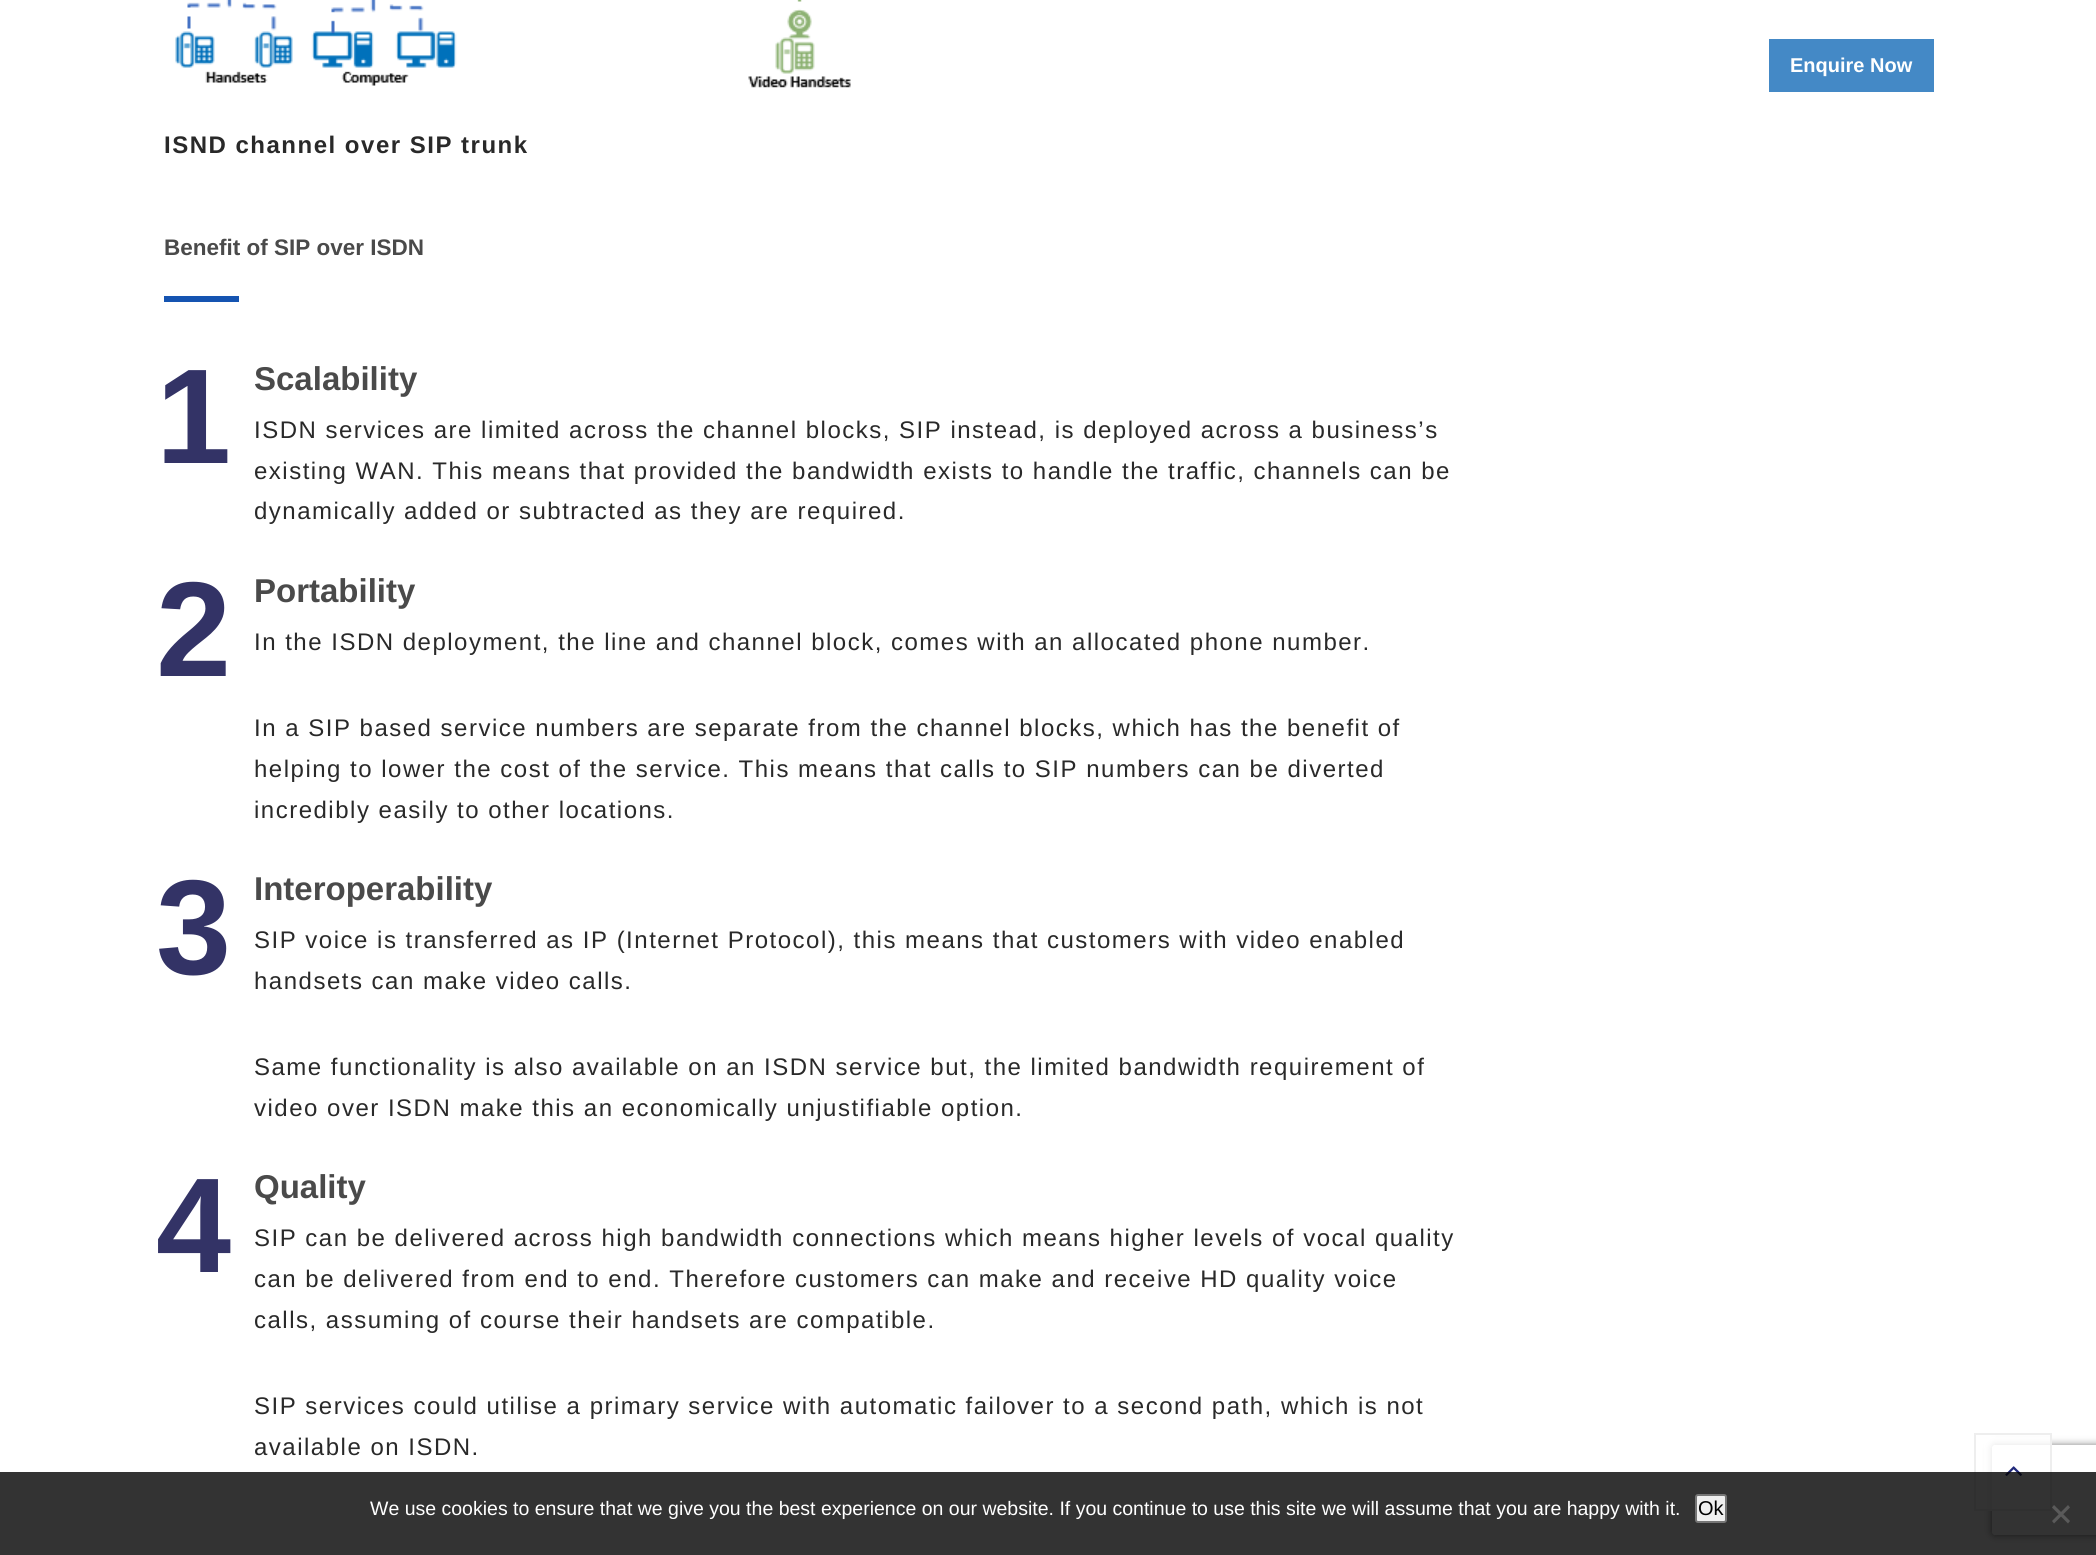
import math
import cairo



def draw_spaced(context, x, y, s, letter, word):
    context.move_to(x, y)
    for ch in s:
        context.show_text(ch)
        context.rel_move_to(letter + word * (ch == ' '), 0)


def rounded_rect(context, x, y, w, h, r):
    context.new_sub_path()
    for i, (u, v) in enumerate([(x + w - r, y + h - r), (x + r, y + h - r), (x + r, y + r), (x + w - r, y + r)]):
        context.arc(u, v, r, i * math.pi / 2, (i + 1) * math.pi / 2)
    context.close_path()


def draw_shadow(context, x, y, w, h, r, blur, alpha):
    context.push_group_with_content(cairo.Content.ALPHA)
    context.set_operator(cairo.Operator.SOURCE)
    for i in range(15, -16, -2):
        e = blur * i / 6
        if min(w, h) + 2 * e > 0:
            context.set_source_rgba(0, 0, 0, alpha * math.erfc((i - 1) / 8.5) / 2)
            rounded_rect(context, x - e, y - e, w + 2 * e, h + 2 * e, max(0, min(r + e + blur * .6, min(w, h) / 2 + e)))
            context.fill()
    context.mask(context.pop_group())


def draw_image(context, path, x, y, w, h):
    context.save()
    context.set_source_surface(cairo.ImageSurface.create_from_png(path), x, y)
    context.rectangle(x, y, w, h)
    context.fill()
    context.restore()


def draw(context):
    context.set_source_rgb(1, 1, 1)
    context.paint()
    context.set_source_rgb(68 / 255, 137 / 255, 198 / 255)
    context.rectangle(1769, 39, 165, 53)
    context.fill()
    draw_image(context, "images/1.png", 175, 0, 676, 88)
    context.set_source_rgb(21 / 255, 84 / 255, 177 / 255)
    context.rectangle(164, 296, 75, 6)
    context.fill()
    context.save()
    context.set_fill_rule(cairo.FillRule.EVEN_ODD)
    context.new_path()
    context.move_to(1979, 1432)
    context.line_to(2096, 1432)
    context.line_to(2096, 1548)
    context.line_to(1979, 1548)
    context.close_path()
    context.move_to(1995, 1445)
    context.line_to(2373, 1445)
    context.curve_to(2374.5, 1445, 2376, 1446.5, 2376, 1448)
    context.line_to(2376, 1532)
    context.curve_to(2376, 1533.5, 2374.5, 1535, 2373, 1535)
    context.line_to(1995, 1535)
    context.curve_to(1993.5, 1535, 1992, 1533.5, 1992, 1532)
    context.line_to(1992, 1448)
    context.curve_to(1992, 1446.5, 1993.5, 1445, 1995, 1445)
    context.close_path()
    context.clip()
    context.set_source_rgb(128 / 255, 128 / 255, 128 / 255)
    draw_shadow(context, 1992, 1445, 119, 90, 3, 4, 1)
    context.restore()
    context.set_source_rgba(1, 1, 1, 0.8)
    context.rectangle(1984, 1437, 66, 72)
    context.fill()
    context.rectangle(1975, 1434, 76, 76)
    context.set_source_rgb(238 / 255, 238 / 255, 238 / 255)
    context.stroke()
    draw_image(context, "images/2.png", 2005, 1466, 17, 10)
    context.set_source_rgba(0, 0, 0, 0.8)
    context.rectangle(0, 1472, 2096, 83)
    context.fill()
    context.set_source_rgb(239 / 255, 239 / 255, 239 / 255)
    rounded_rect(context, 1696, 1495, 30, 27, 2)
    context.fill_preserve()
    context.set_source_rgb(118 / 255, 118 / 255, 118 / 255)
    context.stroke()
    context.set_source_rgb(90 / 255, 90 / 255, 90 / 255)
    context.new_path()
    context.move_to(2068, 1505)
    context.line_to(2070, 1507.5)
    context.line_to(2054, 1523.5)
    context.line_to(2052, 1521)
    context.close_path()
    context.fill()
    context.new_path()
    context.move_to(2052, 1507.5)
    context.line_to(2054, 1505)
    context.line_to(2070, 1521)
    context.line_to(2068, 1523.5)
    context.close_path()
    context.fill()
    context.select_font_face("Liberation Sans", cairo.FontSlant.NORMAL, cairo.FontWeight.BOLD)
    context.set_font_size(20)
    context.set_source_rgb(1, 1, 1)
    context.move_to(1790, 72)
    context.show_text("Enquire Now")
    context.set_font_size(24)
    context.set_source_rgb(41 / 255, 41 / 255, 41 / 255)
    draw_spaced(context, 164, 153, "ISND channel over SIP trunk", 1.5, 0)
    context.set_font_size(22.5)
    context.set_source_rgb(74 / 255, 74 / 255, 74 / 255)
    context.move_to(164, 255)
    context.show_text("Benefit of SIP over ISDN")
    context.set_font_size(135)
    context.set_source_rgb(51 / 255, 51 / 255, 102 / 255)
    context.move_to(156, 463)
    context.show_text("1")
    context.set_font_size(33)
    context.set_source_rgb(74 / 255, 74 / 255, 74 / 255)
    context.move_to(254, 390)
    context.show_text("Scalability")
    context.select_font_face("Liberation Sans")
    context.set_font_size(24)
    context.set_source_rgb(41 / 255, 41 / 255, 41 / 255)
    draw_spaced(context, 254, 438, "ISDN services are limited across the channel blocks, SIP instead, is deployed across a business’s", 1.5, 0)
    draw_spaced(context, 254, 479, "existing WAN. This means that provided the bandwidth exists to handle the traffic, channels can be", 1.5, 0)
    draw_spaced(context, 254, 519, "dynamically added or subtracted as they are required.", 1.5, 0)
    context.select_font_face("Liberation Sans", cairo.FontSlant.NORMAL, cairo.FontWeight.BOLD)
    context.set_font_size(135)
    context.set_source_rgb(51 / 255, 51 / 255, 102 / 255)
    context.move_to(156, 676)
    context.show_text("2")
    context.set_font_size(33)
    context.set_source_rgb(74 / 255, 74 / 255, 74 / 255)
    context.move_to(254, 602)
    context.show_text("Portability")
    context.select_font_face("Liberation Sans")
    context.set_font_size(24)
    context.set_source_rgb(41 / 255, 41 / 255, 41 / 255)
    draw_spaced(context, 254, 650, "In the ISDN deployment, the line and channel block, comes with an allocated phone number.", 1.5, 0)
    draw_spaced(context, 254, 736, "In a SIP based service numbers are separate from the channel blocks, which has the benefit of", 1.5, 0)
    draw_spaced(context, 254, 777, "helping to lower the cost of the service. This means that calls to SIP numbers can be diverted", 1.5, 0)
    draw_spaced(context, 254, 818, "incredibly easily to other locations.", 1.5, 0)
    context.select_font_face("Liberation Sans", cairo.FontSlant.NORMAL, cairo.FontWeight.BOLD)
    context.set_font_size(135)
    context.set_source_rgb(51 / 255, 51 / 255, 102 / 255)
    context.move_to(156, 974)
    context.show_text("3")
    context.set_font_size(33)
    context.set_source_rgb(74 / 255, 74 / 255, 74 / 255)
    context.move_to(254, 900)
    context.show_text("Interoperability")
    context.select_font_face("Liberation Sans")
    context.set_font_size(24)
    context.set_source_rgb(41 / 255, 41 / 255, 41 / 255)
    draw_spaced(context, 254, 948, "SIP voice is transferred as IP (Internet Protocol), this means that customers with video enabled", 1.5, 0)
    draw_spaced(context, 254, 989, "handsets can make video calls.", 1.5, 0)
    draw_spaced(context, 254, 1075, "Same functionality is also available on an ISDN service but, the limited bandwidth requirement of", 1.5, 0)
    draw_spaced(context, 254, 1116, "video over ISDN make this an economically unjustifiable option.", 1.5, 0)
    context.select_font_face("Liberation Sans", cairo.FontSlant.NORMAL, cairo.FontWeight.BOLD)
    context.set_font_size(135)
    context.set_source_rgb(51 / 255, 51 / 255, 102 / 255)
    context.move_to(156, 1272)
    context.show_text("4")
    context.set_font_size(33)
    context.set_source_rgb(74 / 255, 74 / 255, 74 / 255)
    context.move_to(254, 1198)
    context.show_text("Quality")
    context.select_font_face("Liberation Sans")
    context.set_font_size(24)
    context.set_source_rgb(41 / 255, 41 / 255, 41 / 255)
    draw_spaced(context, 254, 1246, "SIP can be delivered across high bandwidth connections which means higher levels of vocal quality", 1.5, 0)
    draw_spaced(context, 254, 1287, "can be delivered from end to end. Therefore customers can make and receive HD quality voice", 1.5, 0)
    draw_spaced(context, 254, 1328, "calls, assuming of course their handsets are compatible.", 1.5, 0)
    draw_spaced(context, 254, 1414, "SIP services could utilise a primary service with automatic failover to a second path, which is not", 1.5, 0)
    draw_spaced(context, 254, 1455, "available on ISDN.", 1.5, 0)
    context.set_font_size(19.5)
    context.set_source_rgb(1, 1, 1)
    context.move_to(370, 1515)
    context.show_text("We use cookies to ensure that we give you the best experience on our website. If you continue to use this site we will assume that you are happy with it.")
    context.set_font_size(20)
    context.set_source_rgb(0, 0, 0)
    context.move_to(1698, 1515)
    context.show_text("Ok")


surface = cairo.ImageSurface(cairo.Format.RGB24, 2096, 1555)
context = cairo.Context(surface)
options = cairo.FontOptions()
options.set_hint_metrics(cairo.HintMetrics.OFF)
options.set_hint_style(cairo.HintStyle.NONE)
context.set_font_options(options)
context.set_miter_limit(4)
draw(context)
surface.write_to_png("out.png")
